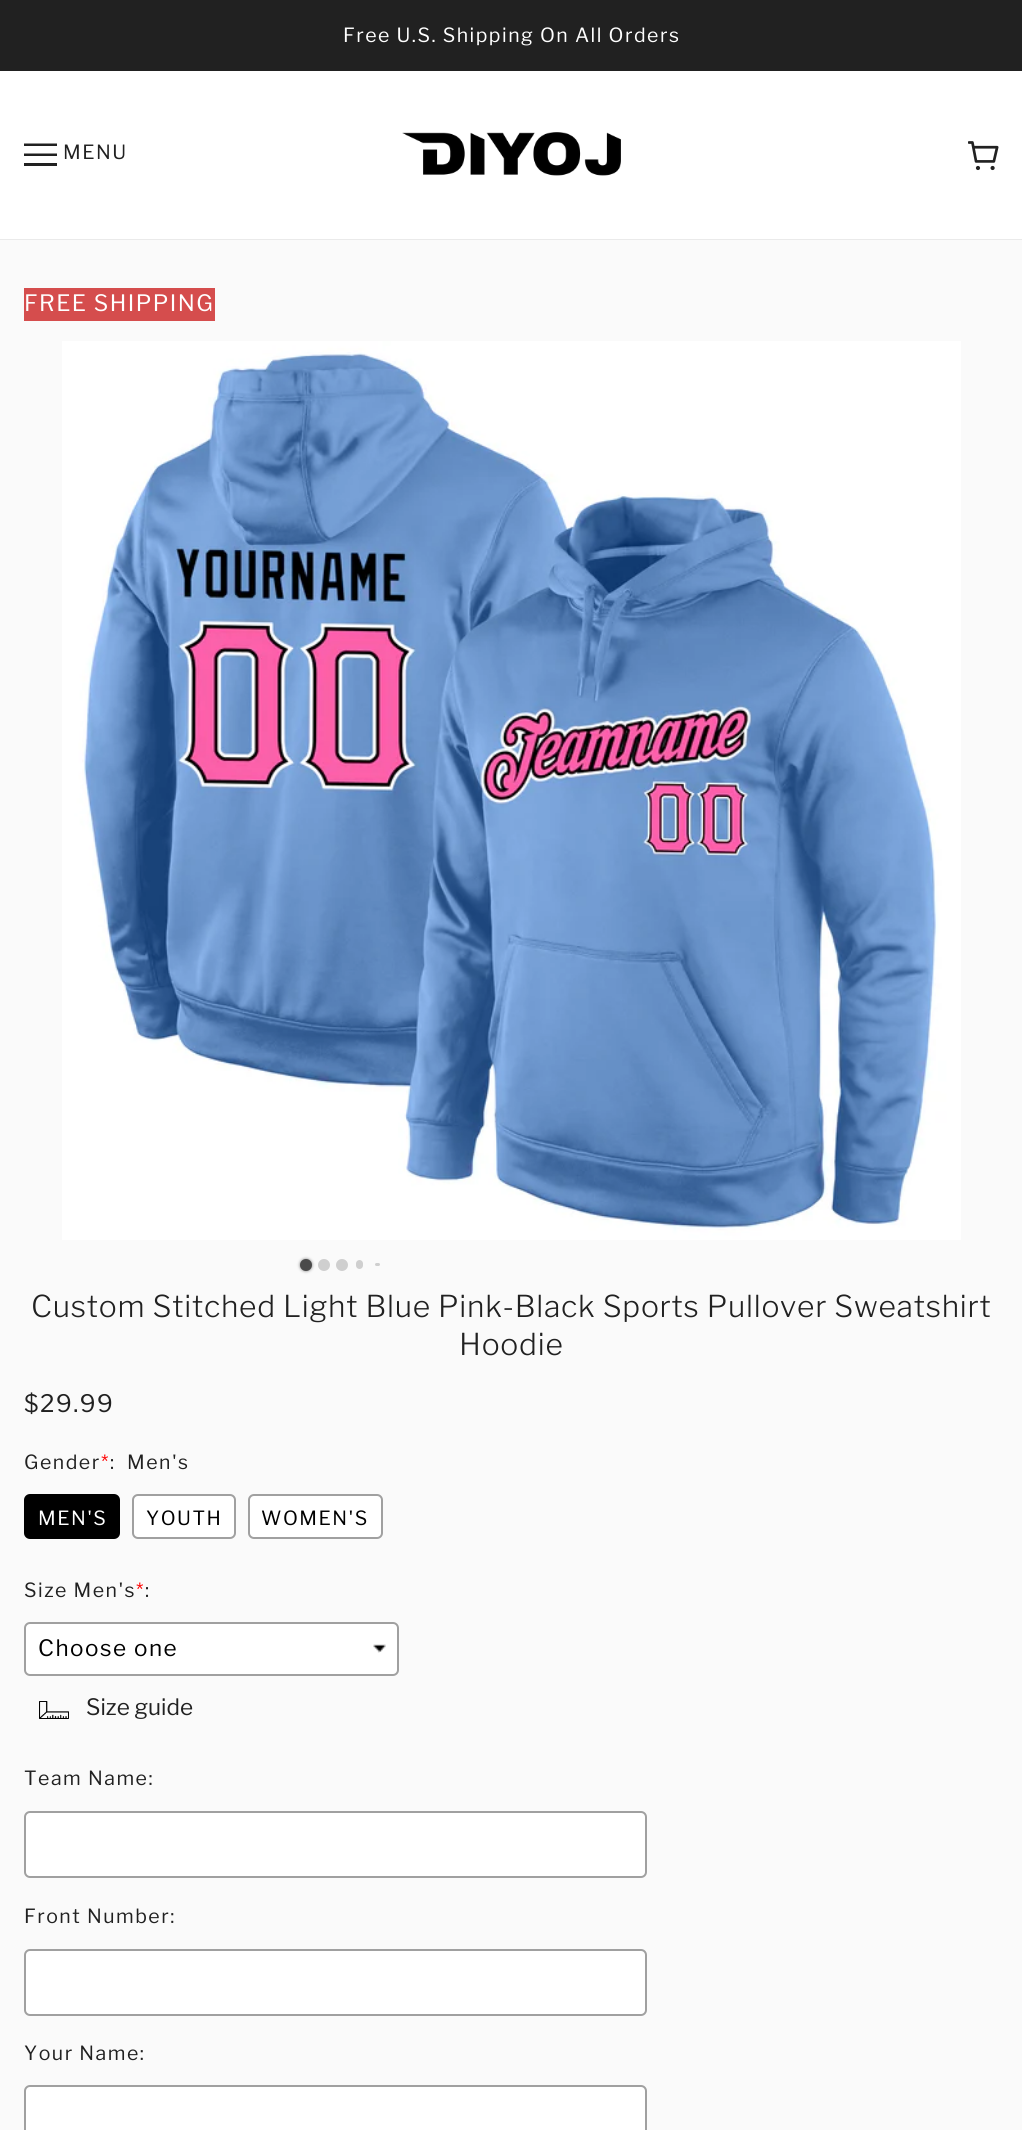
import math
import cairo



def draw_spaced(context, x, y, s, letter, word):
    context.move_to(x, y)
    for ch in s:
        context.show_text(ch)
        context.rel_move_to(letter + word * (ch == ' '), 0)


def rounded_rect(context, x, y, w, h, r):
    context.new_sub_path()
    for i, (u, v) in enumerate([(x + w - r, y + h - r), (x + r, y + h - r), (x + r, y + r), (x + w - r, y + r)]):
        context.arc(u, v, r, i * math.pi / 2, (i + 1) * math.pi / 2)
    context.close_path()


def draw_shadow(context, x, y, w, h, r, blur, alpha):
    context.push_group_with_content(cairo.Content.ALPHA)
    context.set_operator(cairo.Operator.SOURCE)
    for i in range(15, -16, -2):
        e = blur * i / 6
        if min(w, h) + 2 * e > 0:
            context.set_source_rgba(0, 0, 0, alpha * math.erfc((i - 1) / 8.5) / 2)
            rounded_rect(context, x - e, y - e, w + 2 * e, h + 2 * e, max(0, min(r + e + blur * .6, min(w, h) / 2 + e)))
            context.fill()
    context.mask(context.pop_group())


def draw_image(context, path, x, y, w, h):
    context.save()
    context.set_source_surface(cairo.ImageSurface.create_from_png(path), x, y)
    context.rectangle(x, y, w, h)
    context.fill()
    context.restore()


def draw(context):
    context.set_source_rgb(1, 1, 1)
    context.paint()
    context.set_source_rgb(33 / 255, 33 / 255, 33 / 255)
    context.rectangle(0, 0, 1022, 71)
    context.fill()
    context.set_source_rgb(234 / 255, 234 / 255, 234 / 255)
    context.rectangle(0, 239, 1022, 1)
    context.fill()
    context.set_source_rgb(33 / 255, 33 / 255, 33 / 255)
    context.new_path()
    context.move_to(24, 146)
    context.line_to(24, 143.5)
    context.line_to(57, 143.5)
    context.line_to(57, 146)
    context.close_path()
    context.move_to(24, 156)
    context.line_to(24, 153.5)
    context.line_to(57, 153.5)
    context.line_to(57, 156)
    context.close_path()
    context.move_to(24, 166)
    context.line_to(24, 163)
    context.line_to(57, 163)
    context.line_to(57, 166)
    context.close_path()
    context.fill()
    draw_image(context, "images/1.png", 402, 132, 219, 44)
    draw_image(context, "images/2.png", 968, 141, 31, 30)
    context.set_source_rgb(250 / 255, 250 / 255, 250 / 255)
    context.rectangle(0, 240, 1022, 1890)
    context.fill()
    context.set_source_rgb(213 / 255, 77 / 255, 77 / 255)
    context.rectangle(24, 288, 191, 33)
    context.fill()
    draw_image(context, "images/3.png", 62, 341, 899, 899)
    context.set_source_rgb(48 / 255, 48 / 255, 48 / 255)
    draw_shadow(context, 300, 1259, 12, 12, 6, 1.5, 0.6)
    context.set_source_rgb(74 / 255, 74 / 255, 74 / 255)
    context.arc(306, 1265, 6, 0, 2 * math.pi)
    context.fill()
    context.set_source_rgb(207 / 255, 207 / 255, 207 / 255)
    context.arc(324, 1265, 6, 0, 2 * math.pi)
    context.fill()
    context.arc(342, 1265, 6, 0, 2 * math.pi)
    context.fill()
    rounded_rect(context, 356, 1260, 7, 9, 3.5)
    context.fill()
    rounded_rect(context, 375, 1263, 5, 3, 1.5)
    context.fill()
    context.set_source_rgb(0, 0, 0)
    rounded_rect(context, 25, 1495, 94, 43, 5)
    context.fill_preserve()
    context.stroke()
    context.set_source_rgb(1, 1, 1)
    rounded_rect(context, 133, 1495, 102, 43, 5)
    context.fill_preserve()
    context.set_source_rgb(160 / 255, 160 / 255, 160 / 255)
    context.stroke()
    context.set_source_rgb(1, 1, 1)
    rounded_rect(context, 249, 1495, 133, 43, 5)
    context.fill_preserve()
    context.set_source_rgb(160 / 255, 160 / 255, 160 / 255)
    context.stroke()
    context.set_source_rgb(1, 1, 1)
    rounded_rect(context, 24, 1622, 375, 54, 6)
    context.fill()
    draw_image(context, "images/4.png", 373, 1644, 13, 9)
    rounded_rect(context, 25, 1623, 373, 52, 5)
    context.set_source_rgb(160 / 255, 160 / 255, 160 / 255)
    context.stroke()
    draw_image(context, "images/5.png", 39, 1701, 30, 18)
    context.set_source_rgb(1, 1, 1)
    rounded_rect(context, 25, 1812, 621, 65, 5)
    context.fill_preserve()
    context.set_source_rgb(160 / 255, 160 / 255, 160 / 255)
    context.stroke()
    context.set_source_rgb(1, 1, 1)
    rounded_rect(context, 25, 1950, 621, 65, 5)
    context.fill_preserve()
    context.set_source_rgb(160 / 255, 160 / 255, 160 / 255)
    context.stroke()
    context.set_source_rgb(1, 1, 1)
    rounded_rect(context, 25, 2086, 621, 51, 5)
    context.fill_preserve()
    context.set_source_rgb(160 / 255, 160 / 255, 160 / 255)
    context.stroke()
    context.select_font_face("Libre Franklin")
    context.set_font_size(19.5)
    context.set_source_rgb(1, 1, 1)
    draw_spaced(context, 343, 42, "Free U.S. Shipping On All Orders", 1.5, 0)
    context.set_source_rgb(33 / 255, 33 / 255, 33 / 255)
    draw_spaced(context, 63, 159, "MENU", 1.5, 0)
    context.set_font_size(22.5)
    context.set_source_rgb(1, 1, 1)
    draw_spaced(context, 24, 311, "FREE SHIPPING", 1.5, 0)
    context.select_font_face("Libre Franklin Light")
    context.set_font_size(30)
    context.set_source_rgb(33 / 255, 33 / 255, 33 / 255)
    draw_spaced(context, 31, 1317, "Custom Stitched Light Blue Pink-Black Sports Pullover Sweatshirt", 0.75, 0)
    draw_spaced(context, 459, 1355, "Hoodie", 0.75, 0)
    context.select_font_face("Libre Franklin")
    context.set_font_size(24)
    draw_spaced(context, 24, 1412, "$29.99", 1.5, 0)
    context.set_font_size(19.5)
    draw_spaced(context, 24, 1469, "Gender", 1.5, 0)
    context.set_source_rgb(1, 0, 0)
    draw_spaced(context, 101, 1469, "*", 1.5, 0)
    context.set_source_rgb(33 / 255, 33 / 255, 33 / 255)
    draw_spaced(context, 110, 1469, ":", 1.5, 0)
    draw_spaced(context, 127, 1469, "Men's", 1.5, 0)
    context.set_source_rgb(1, 1, 1)
    draw_spaced(context, 38, 1525, "MEN'S", 1.5, 0)
    context.set_source_rgb(0, 0, 0)
    draw_spaced(context, 146, 1525, "YOUTH", 1.5, 0)
    draw_spaced(context, 261, 1525, "WOMEN'S", 1.5, 0)
    context.set_source_rgb(33 / 255, 33 / 255, 33 / 255)
    draw_spaced(context, 24, 1597, "Size Men's", 1.5, 0)
    context.set_source_rgb(1, 0, 0)
    draw_spaced(context, 136, 1597, "*", 1.5, 0)
    context.set_source_rgb(33 / 255, 33 / 255, 33 / 255)
    draw_spaced(context, 145, 1597, ":", 1.5, 0)
    context.set_font_size(22.5)
    context.set_source_rgb(0, 0, 0)
    draw_spaced(context, 38, 1656, "Choose one", 1.5, 0)
    context.set_source_rgb(33 / 255, 33 / 255, 33 / 255)
    context.move_to(86, 1715)
    context.show_text("Size guide")
    context.set_font_size(19.5)
    draw_spaced(context, 24, 1785, "Team Name:", 1.5, 0)
    draw_spaced(context, 24, 1923, "Front Number:", 1.5, 0)
    draw_spaced(context, 24, 2060, "Your Name:", 1.5, 0)


surface = cairo.ImageSurface(cairo.Format.RGB24, 1022, 2130)
context = cairo.Context(surface)
options = cairo.FontOptions()
options.set_hint_metrics(cairo.HintMetrics.OFF)
options.set_hint_style(cairo.HintStyle.NONE)
context.set_font_options(options)
context.set_miter_limit(4)
draw(context)
surface.write_to_png("out.png")
